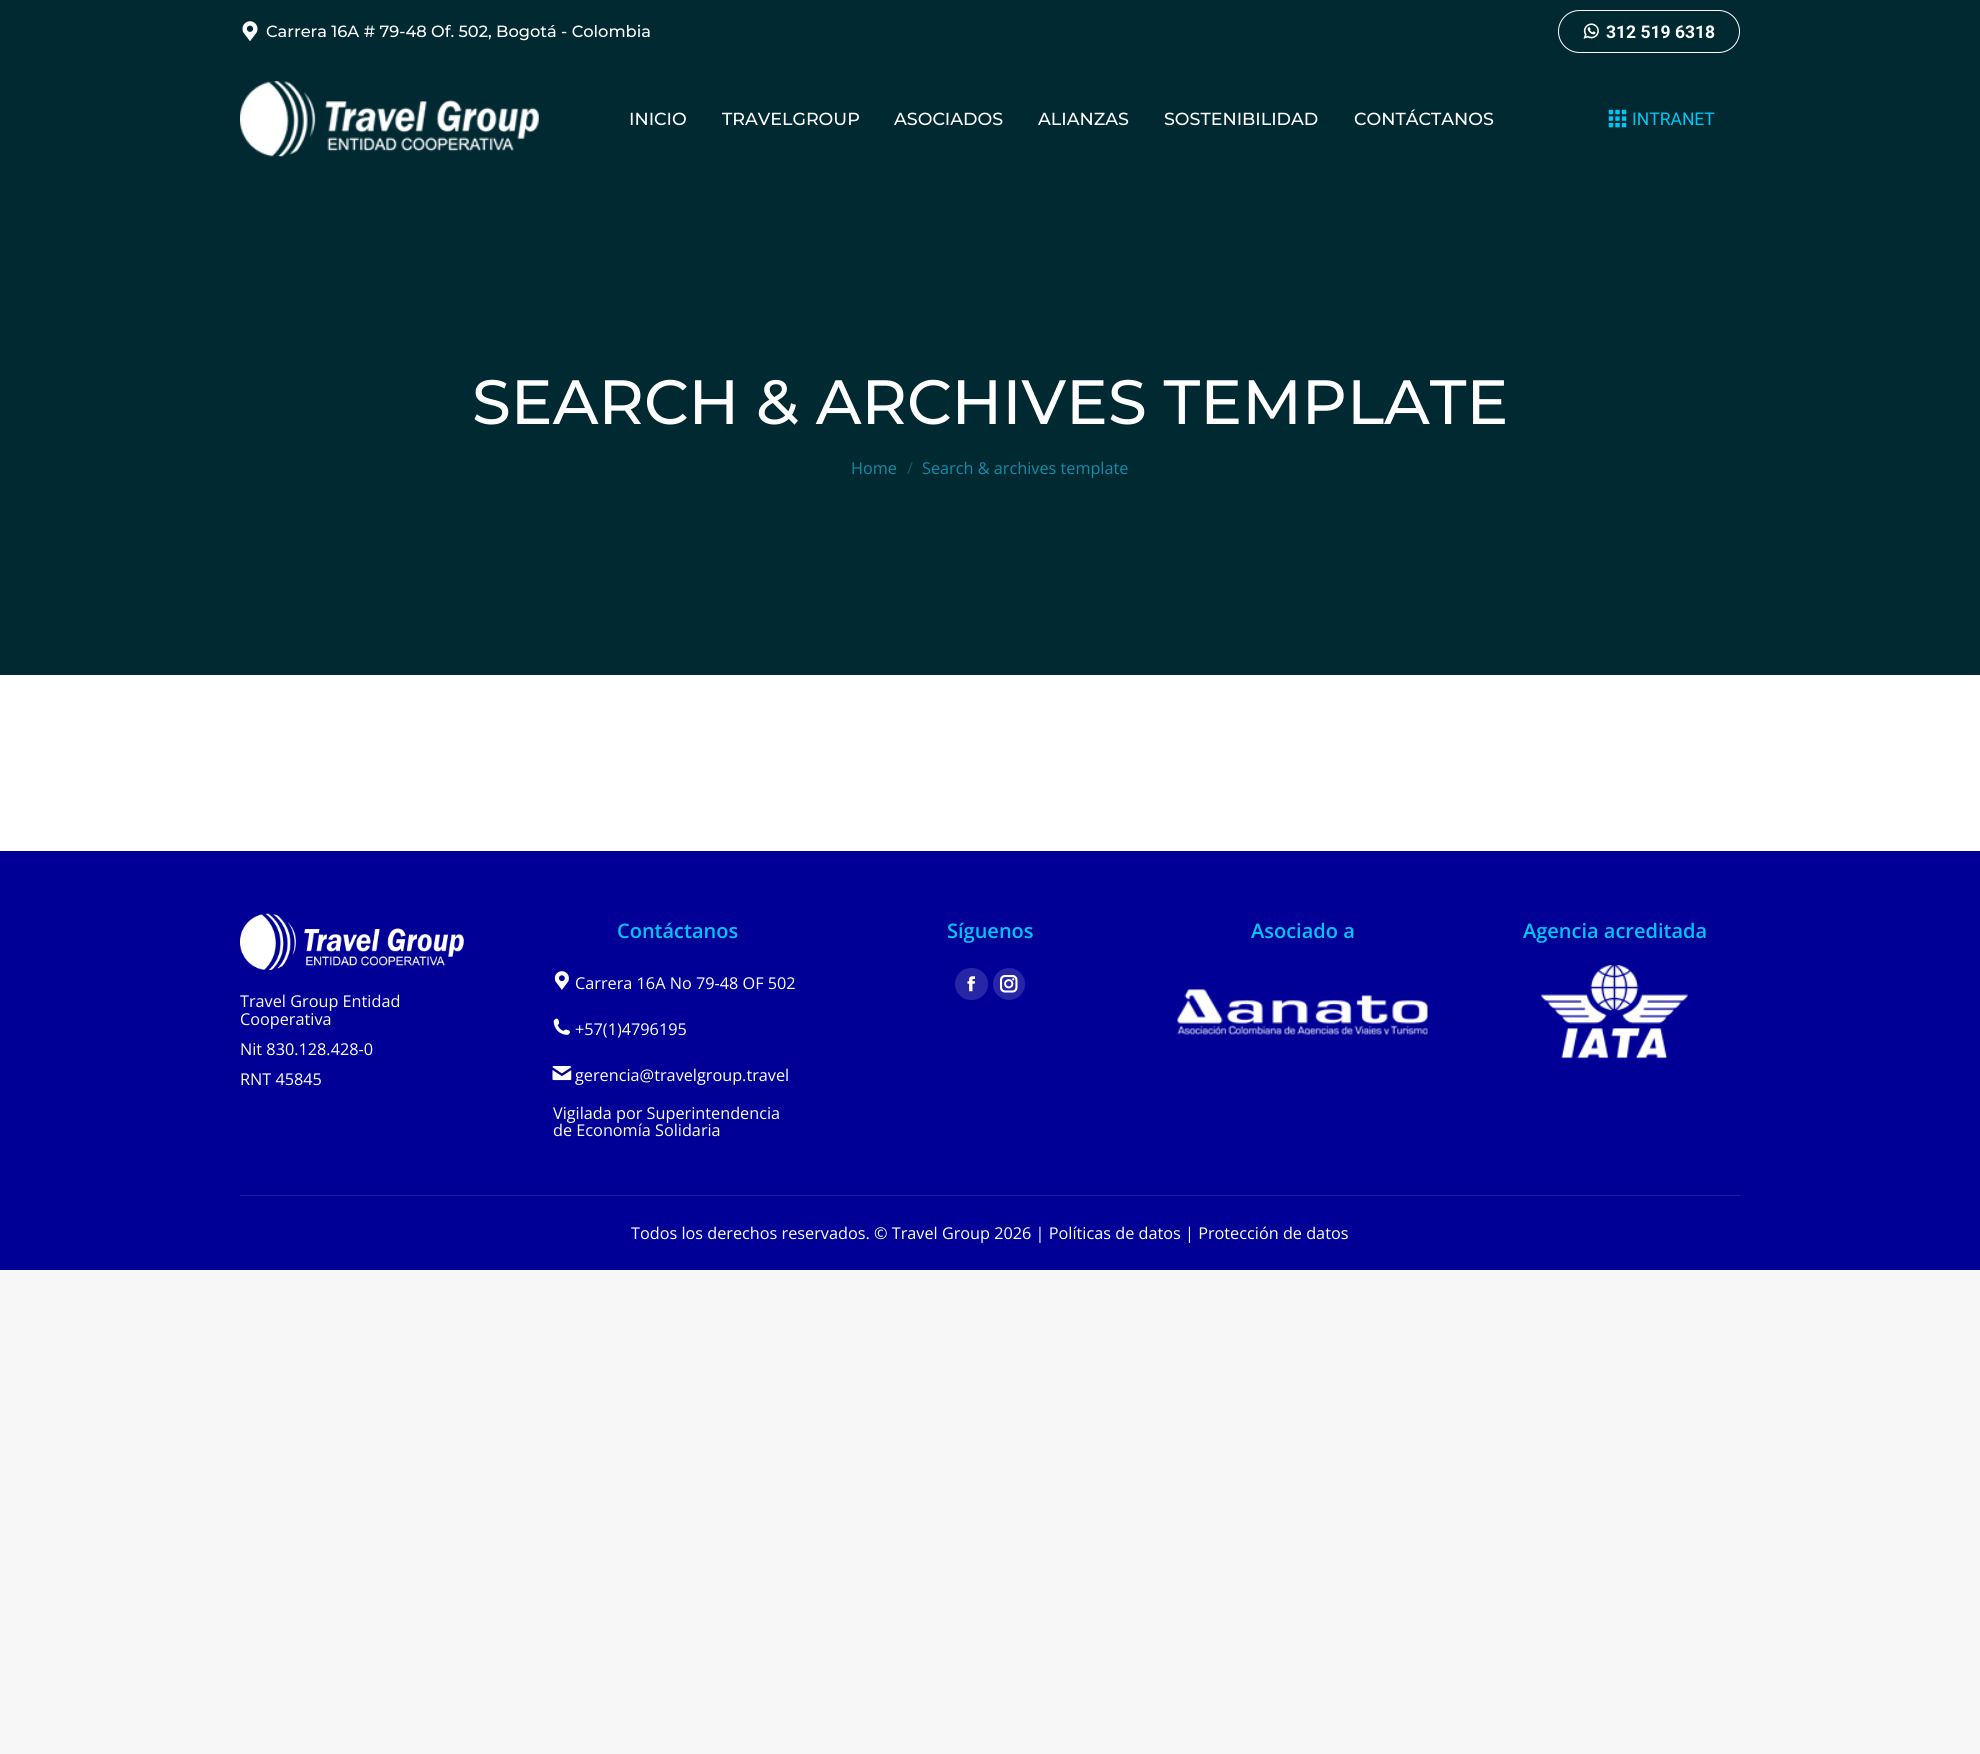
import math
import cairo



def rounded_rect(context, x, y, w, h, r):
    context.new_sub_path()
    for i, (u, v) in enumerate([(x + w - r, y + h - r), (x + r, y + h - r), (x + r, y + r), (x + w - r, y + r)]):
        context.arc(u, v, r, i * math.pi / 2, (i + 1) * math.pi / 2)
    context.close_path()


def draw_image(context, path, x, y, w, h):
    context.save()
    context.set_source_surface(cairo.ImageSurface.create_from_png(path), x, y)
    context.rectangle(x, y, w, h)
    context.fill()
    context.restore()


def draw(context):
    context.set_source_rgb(247 / 255, 247 / 255, 247 / 255)
    context.paint()
    context.set_source_rgb(1, 1, 1)
    context.rectangle(0, 675, 1980, 176)
    context.fill()
    context.set_source_rgb(0, 41 / 255, 50 / 255)
    context.rectangle(0, 0, 1980, 675)
    context.fill()
    draw_image(context, "images/1.png", 242, 21, 16, 21)
    rounded_rect(context, 1558.5, 10.5, 181, 42, 21)
    context.set_source_rgb(1, 1, 1)
    context.set_line_width(1)
    context.stroke()
    draw_image(context, "images/2.png", 1583, 23, 16, 16)
    draw_image(context, "images/3.png", 240, 81, 299, 76)
    draw_image(context, "images/4.png", 1608, 109, 19, 19)
    context.set_source_rgb(0, 0, 151 / 255)
    context.rectangle(0, 851, 1980, 419)
    context.fill()
    draw_image(context, "images/5.png", 554, 971, 15, 19)
    draw_image(context, "images/6.png", 553, 1018, 17, 17)
    draw_image(context, "images/7.png", 552, 1066, 20, 15)
    context.set_source_rgb(38 / 255, 38 / 255, 167 / 255)
    rounded_rect(context, 955, 968, 33, 32, 16)
    context.fill()
    draw_image(context, "images/8.png", 967, 976, 8, 16)
    context.arc(1009, 984, 16, 0, 2 * math.pi)
    context.fill()
    draw_image(context, "images/9.png", 1000, 975, 18, 18)
    draw_image(context, "images/10.png", 1177, 989, 251, 46)
    draw_image(context, "images/11.png", 1540, 965, 148, 94)
    draw_image(context, "images/12.png", 240, 913, 224, 57)
    context.set_source_rgb(31 / 255, 31 / 255, 163 / 255)
    context.rectangle(240, 1195, 1500, 1)
    context.fill()
    context.select_font_face("Montserrat Medium")
    context.set_font_size(16.25)
    context.set_source_rgb(1, 1, 1)
    context.move_to(266, 37)
    context.show_text("Carrera 16A # 79-48 Of. 502, Bogotá - Colombia")
    context.select_font_face("Roboto", cairo.FontSlant.NORMAL, cairo.FontWeight.BOLD)
    context.set_font_size(17.5)
    context.move_to(1606, 38)
    context.show_text("312 519 6318")
    context.select_font_face("Montserrat Medium")
    context.move_to(629, 125)
    context.show_text("INICIO")
    context.move_to(722, 125)
    context.show_text("TRAVELGROUP")
    context.move_to(894, 125)
    context.show_text("ASOCIADOS")
    context.move_to(1038, 125)
    context.show_text("ALIANZAS")
    context.move_to(1164, 125)
    context.show_text("SOSTENIBILIDAD")
    context.move_to(1354, 125)
    context.show_text("CONTÁCTANOS")
    context.select_font_face("Roboto")
    context.set_source_rgb(1 / 255, 197 / 255, 245 / 255)
    context.move_to(1632, 125)
    context.show_text("INTRANET")
    context.select_font_face("Montserrat Medium")
    context.set_font_size(62.5)
    context.set_source_rgb(1, 1, 1)
    context.move_to(472, 424)
    context.show_text("SEARCH & ARCHIVES TEMPLATE")
    context.select_font_face("Open Sans")
    context.set_font_size(16.25)
    context.set_source_rgb(20 / 255, 139 / 255, 169 / 255)
    context.move_to(851, 474)
    context.show_text("Home")
    context.set_source_rgb(10 / 255, 90 / 255, 110 / 255)
    context.move_to(907, 474)
    context.show_text("/")
    context.set_source_rgb(20 / 255, 139 / 255, 169 / 255)
    context.move_to(922, 474)
    context.show_text("Search & archives template")
    context.select_font_face("Open Sans SemiBold")
    context.set_font_size(20)
    context.set_source_rgb(1 / 255, 197 / 255, 245 / 255)
    context.move_to(617, 938)
    context.show_text("Contáctanos")
    context.select_font_face("Open Sans")
    context.set_font_size(16.25)
    context.set_source_rgb(1, 1, 1)
    context.move_to(575, 989)
    context.show_text("Carrera 16A No 79-48 OF 502")
    context.move_to(575, 1035)
    context.show_text("+57(1)4796195")
    context.move_to(575, 1081)
    context.show_text("gerencia@travelgroup.travel")
    context.move_to(553, 1119)
    context.show_text("Vigilada por Superintendencia")
    context.move_to(553, 1136)
    context.show_text("de Economía Solidaria")
    context.select_font_face("Open Sans SemiBold")
    context.set_font_size(20)
    context.set_source_rgb(1 / 255, 197 / 255, 245 / 255)
    context.move_to(947, 938)
    context.show_text("Síguenos")
    context.move_to(1251, 938)
    context.show_text("Asociado a")
    context.move_to(1523, 938)
    context.show_text("Agencia acreditada")
    context.select_font_face("Open Sans")
    context.set_font_size(16.25)
    context.set_source_rgb(1, 1, 1)
    context.move_to(240, 1007)
    context.show_text("Travel Group Entidad")
    context.move_to(240, 1025)
    context.show_text("Cooperativa")
    context.move_to(240, 1055)
    context.show_text("Nit 830.128.428-0")
    context.move_to(240, 1085)
    context.show_text("RNT 45845")
    context.move_to(631, 1239)
    context.show_text("Todos los derechos reservados. © Travel Group 2026 | Políticas de datos | Protección de datos")


surface = cairo.ImageSurface(cairo.Format.RGB24, 1980, 1754)
context = cairo.Context(surface)
options = cairo.FontOptions()
options.set_hint_metrics(cairo.HintMetrics.OFF)
options.set_hint_style(cairo.HintStyle.NONE)
context.set_font_options(options)
context.set_miter_limit(4)
draw(context)
surface.write_to_png("out.png")
